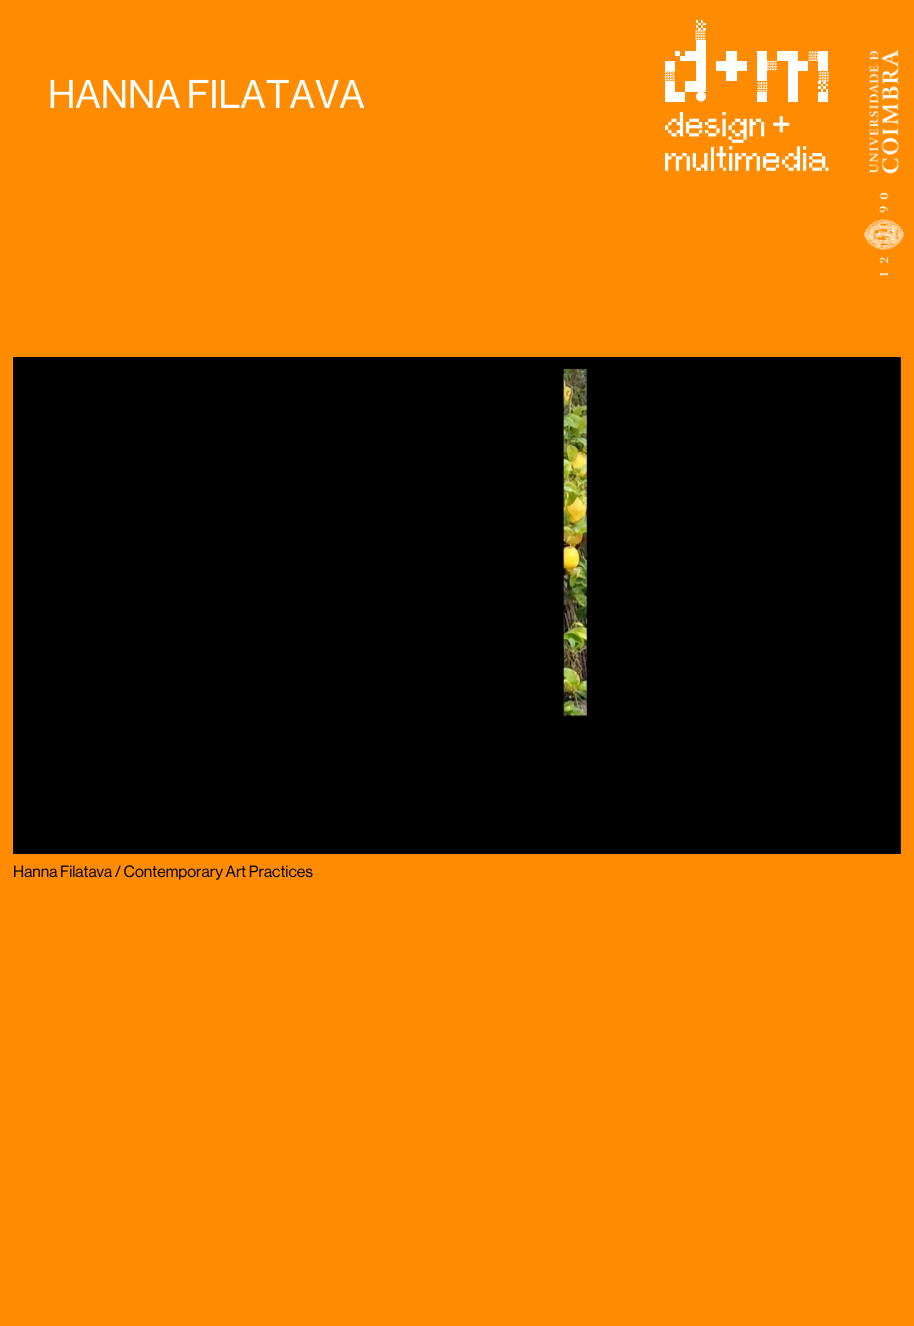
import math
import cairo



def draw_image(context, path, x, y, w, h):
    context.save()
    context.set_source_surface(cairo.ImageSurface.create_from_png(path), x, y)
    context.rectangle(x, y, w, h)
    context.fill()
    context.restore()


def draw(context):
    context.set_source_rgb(1, 139 / 255, 0)
    context.paint()
    draw_image(context, "images/1.png", 665, 20, 164, 151)
    draw_image(context, "images/2.png", 864, 50, 40, 226)
    draw_image(context, "images/3.png", 13, 357, 888, 497)
    context.select_font_face("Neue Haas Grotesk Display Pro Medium")
    context.set_font_size(39.25)
    context.set_source_rgb(1, 1, 1)
    context.move_to(48, 108)
    context.show_text("HANNA FILATAVA")
    context.set_font_size(16)
    context.set_source_rgb(0, 0, 0)
    context.move_to(13, 877)
    context.show_text("Hanna Filatava / Contemporary Art Practices")


surface = cairo.ImageSurface(cairo.Format.RGB24, 914, 1326)
context = cairo.Context(surface)
options = cairo.FontOptions()
options.set_hint_metrics(cairo.HintMetrics.OFF)
options.set_hint_style(cairo.HintStyle.NONE)
context.set_font_options(options)
context.set_miter_limit(4)
draw(context)
surface.write_to_png("out.png")
